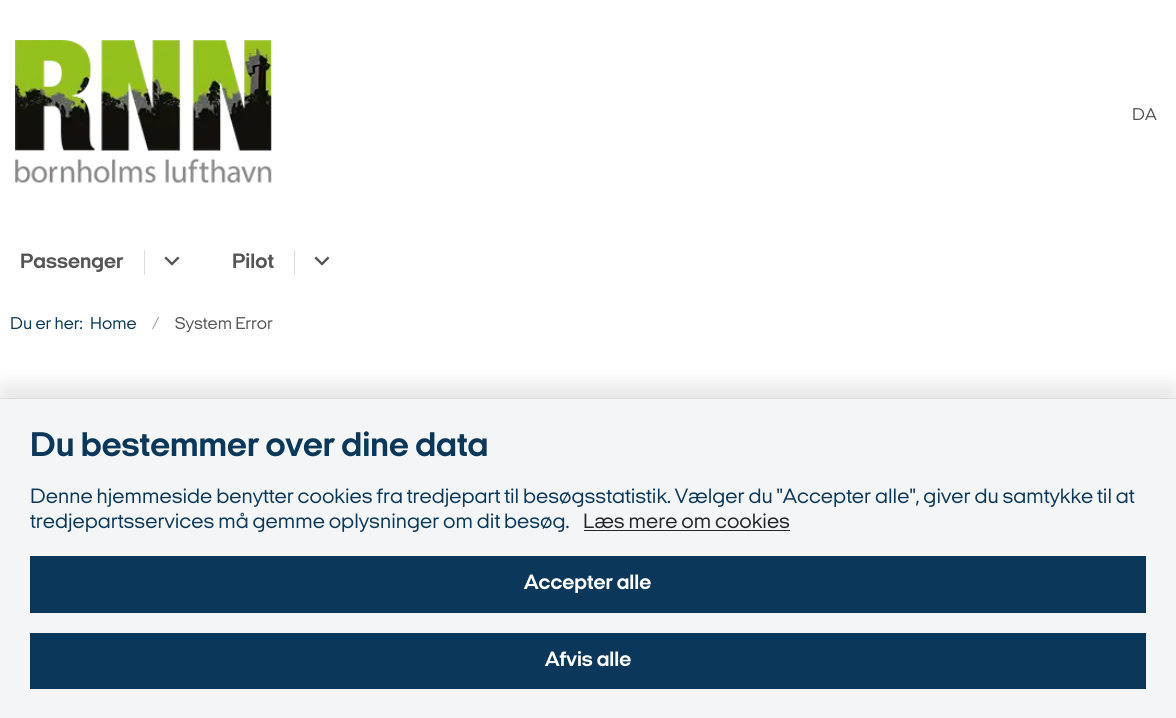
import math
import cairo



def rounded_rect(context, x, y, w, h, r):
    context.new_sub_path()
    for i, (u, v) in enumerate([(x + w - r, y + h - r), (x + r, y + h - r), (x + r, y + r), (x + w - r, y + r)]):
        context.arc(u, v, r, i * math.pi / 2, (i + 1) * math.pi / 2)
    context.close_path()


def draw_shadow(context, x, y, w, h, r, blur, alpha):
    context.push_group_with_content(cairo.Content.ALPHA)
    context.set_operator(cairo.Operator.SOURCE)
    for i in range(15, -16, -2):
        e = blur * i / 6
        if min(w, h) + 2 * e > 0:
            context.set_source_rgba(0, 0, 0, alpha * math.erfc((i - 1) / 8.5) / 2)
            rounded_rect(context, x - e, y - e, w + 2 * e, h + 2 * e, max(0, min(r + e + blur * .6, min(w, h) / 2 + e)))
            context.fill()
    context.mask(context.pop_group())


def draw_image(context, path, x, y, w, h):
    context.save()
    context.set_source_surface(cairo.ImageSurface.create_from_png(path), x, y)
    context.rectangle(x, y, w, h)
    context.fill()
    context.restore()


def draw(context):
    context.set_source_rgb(1, 1, 1)
    context.paint()
    draw_image(context, "images/1.png", 15, 40, 257, 143)
    context.set_source_rgb(221 / 255, 221 / 255, 221 / 255)
    context.rectangle(144, 250, 1, 25)
    context.fill()
    draw_image(context, "images/2.png", 164, 256, 16, 10)
    context.rectangle(294, 250, 1, 25)
    context.fill()
    draw_image(context, "images/2.png", 314, 256, 16, 10)
    context.set_source_rgb(0, 0, 0)
    draw_shadow(context, 0, 385, 1176, 321, 0, 9.5, 0.1)
    context.set_source_rgb(243 / 255, 245 / 255, 247 / 255)
    context.rectangle(0, 399, 1176, 319)
    context.fill()
    context.set_source_rgb(221 / 255, 221 / 255, 221 / 255)
    context.rectangle(0, 398, 1176, 1)
    context.fill()
    context.set_source_rgb(37 / 255, 37 / 255, 37 / 255)
    context.rectangle(584, 530, 206, 1)
    context.fill()
    context.set_source_rgb(10 / 255, 55 / 255, 90 / 255)
    context.rectangle(30, 556, 1116, 57)
    context.fill()
    context.rectangle(30, 633, 1116, 56)
    context.fill()
    context.select_font_face("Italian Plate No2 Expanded")
    context.set_font_size(17.5)
    context.set_source_rgb(85 / 255, 85 / 255, 85 / 255)
    context.move_to(1132, 120)
    context.show_text("DA")
    context.select_font_face("Italian Plate No2 Expanded", cairo.FontSlant.NORMAL, cairo.FontWeight.BOLD)
    context.set_font_size(21.25)
    context.move_to(20, 268)
    context.show_text("Passenger")
    context.move_to(232, 268)
    context.show_text("Pilot")
    context.select_font_face("Italian Plate No2 Expanded")
    context.set_font_size(17.5)
    context.set_source_rgb(10 / 255, 55 / 255, 90 / 255)
    context.move_to(10, 329)
    context.show_text("Du er her:")
    context.move_to(90, 329)
    context.show_text("Home")
    context.set_source_rgb(153 / 255, 153 / 255, 153 / 255)
    context.move_to(152, 329)
    context.show_text("/")
    context.set_source_rgb(85 / 255, 85 / 255, 85 / 255)
    context.move_to(175, 329)
    context.show_text("System Error")
    context.select_font_face("Italian Plate No2 Expanded", cairo.FontSlant.NORMAL, cairo.FontWeight.BOLD)
    context.set_font_size(35)
    context.set_source_rgb(10 / 255, 55 / 255, 90 / 255)
    context.move_to(30, 456)
    context.show_text("Du bestemmer over dine data")
    context.select_font_face("Italian Plate No2 Expanded")
    context.set_font_size(21.25)
    context.move_to(30, 503)
    context.show_text("Denne hjemmeside benytter cookies fra tredjepart til besøgsstatistik. Vælger du \"Accepter alle\", giver du samtykke til at")
    context.move_to(30, 528)
    context.show_text("tredjepartsservices må gemme oplysninger om dit besøg.")
    context.set_source_rgb(37 / 255, 37 / 255, 37 / 255)
    context.move_to(583, 528)
    context.show_text("Læs mere om cookies")
    context.select_font_face("Italian Plate No2 Expanded", cairo.FontSlant.NORMAL, cairo.FontWeight.BOLD)
    context.set_source_rgb(1, 1, 1)
    context.move_to(524, 589)
    context.show_text("Accepter alle")
    context.move_to(545, 666)
    context.show_text("Afvis alle")


surface = cairo.ImageSurface(cairo.Format.RGB24, 1176, 718)
context = cairo.Context(surface)
options = cairo.FontOptions()
options.set_hint_metrics(cairo.HintMetrics.OFF)
options.set_hint_style(cairo.HintStyle.NONE)
context.set_font_options(options)
context.set_miter_limit(4)
draw(context)
surface.write_to_png("out.png")
